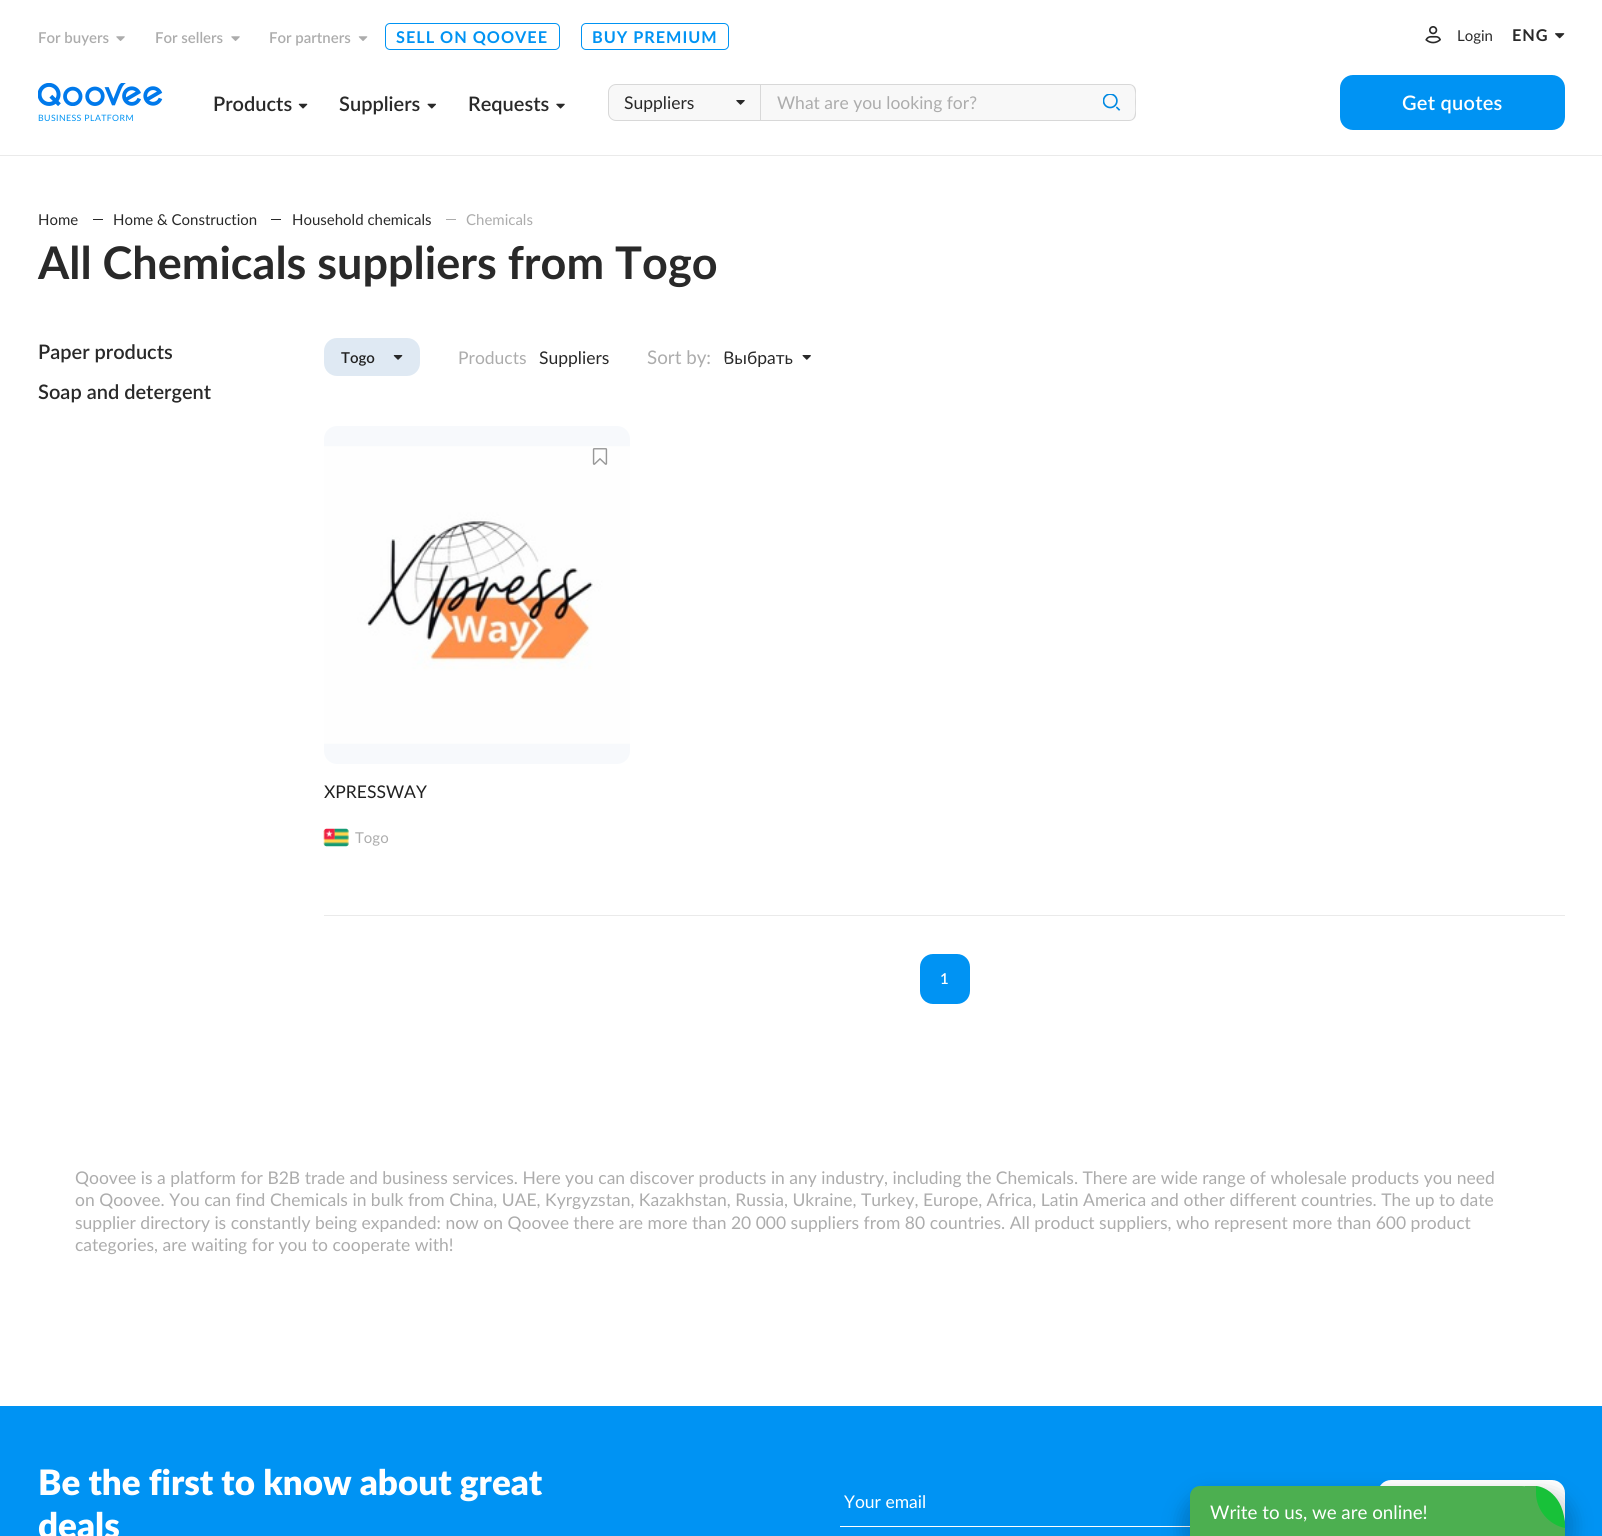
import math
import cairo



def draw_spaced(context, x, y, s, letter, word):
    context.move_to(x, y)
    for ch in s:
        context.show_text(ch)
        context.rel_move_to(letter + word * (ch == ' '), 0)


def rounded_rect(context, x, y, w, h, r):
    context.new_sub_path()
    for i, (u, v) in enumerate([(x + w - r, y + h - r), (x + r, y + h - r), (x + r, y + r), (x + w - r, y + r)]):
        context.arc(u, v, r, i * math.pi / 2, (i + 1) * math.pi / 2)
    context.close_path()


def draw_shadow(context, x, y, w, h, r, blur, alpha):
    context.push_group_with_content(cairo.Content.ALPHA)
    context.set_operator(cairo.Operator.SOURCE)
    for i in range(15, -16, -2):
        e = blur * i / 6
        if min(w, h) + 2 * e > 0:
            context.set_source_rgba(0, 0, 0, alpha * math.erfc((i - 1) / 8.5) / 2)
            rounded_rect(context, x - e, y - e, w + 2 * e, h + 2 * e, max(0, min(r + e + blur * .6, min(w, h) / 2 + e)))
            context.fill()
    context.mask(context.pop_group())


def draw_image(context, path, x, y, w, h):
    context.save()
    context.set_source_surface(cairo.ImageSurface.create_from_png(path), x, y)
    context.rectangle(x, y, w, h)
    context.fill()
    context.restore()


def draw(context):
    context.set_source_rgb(1, 1, 1)
    context.paint()
    context.set_source_rgb(234 / 255, 234 / 255, 234 / 255)
    context.rectangle(0, 155, 1602, 1)
    context.fill()
    draw_image(context, "images/1.png", 116, 36, 9, 5)
    draw_image(context, "images/1.png", 231, 36, 9, 5)
    draw_image(context, "images/2.png", 358, 36, 10, 5)
    rounded_rect(context, 385.5, 23.5, 174, 26, 4.5)
    context.set_source_rgb(0, 147 / 255, 243 / 255)
    context.set_line_width(1)
    context.stroke()
    rounded_rect(context, 581.5, 23.5, 147, 26, 4.5)
    context.stroke()
    draw_image(context, "images/3.png", 1425, 26, 16, 18)
    draw_image(context, "images/4.png", 1555, 33, 10, 6)
    draw_image(context, "images/5.png", 298, 103, 10, 6)
    draw_image(context, "images/6.png", 427, 103, 9, 6)
    draw_image(context, "images/7.png", 556, 103, 9, 6)
    context.set_source_rgb(248 / 255, 248 / 255, 248 / 255)
    context.new_path()
    context.move_to(616, 84.5)
    context.line_to(760.5, 84.5)
    context.line_to(760.5, 120.5)
    context.line_to(616, 120.5)
    context.curve_to(612, 120.5, 608.5, 117, 608.5, 113)
    context.line_to(608.5, 92)
    context.curve_to(608.5, 88, 612, 84.5, 616, 84.5)
    context.close_path()
    context.fill_preserve()
    context.set_source_rgb(216 / 255, 216 / 255, 216 / 255)
    context.stroke()
    draw_image(context, "images/8.png", 736, 100, 9, 5)
    context.set_source_rgb(248 / 255, 248 / 255, 248 / 255)
    context.new_path()
    context.move_to(761, 85)
    context.line_to(1129, 85)
    context.curve_to(1132.5, 85, 1135, 87.5, 1135, 91)
    context.line_to(1135, 114)
    context.curve_to(1135, 117.5, 1132.5, 120, 1129, 120)
    context.line_to(761, 120)
    context.close_path()
    context.fill()
    context.set_source_rgb(216 / 255, 216 / 255, 216 / 255)
    context.set_fill_rule(cairo.FillRule.EVEN_ODD)
    context.new_path()
    context.move_to(761, 84)
    context.line_to(1129, 84)
    context.curve_to(1133, 84, 1136, 87, 1136, 91)
    context.line_to(1136, 114)
    context.curve_to(1136, 118, 1133, 121, 1129, 121)
    context.line_to(761, 121)
    context.close_path()
    context.move_to(761, 85)
    context.line_to(1129, 85)
    context.curve_to(1137, 85, 1135, 97, 1135, 102)
    context.curve_to(1135, 108, 1137, 120, 1129, 120)
    context.line_to(761, 120)
    context.close_path()
    context.fill()
    draw_image(context, "images/9.png", 1103, 94, 18, 17)
    draw_image(context, "images/10.png", 38, 83, 125, 23)
    context.set_source_rgb(0, 147 / 255, 243 / 255)
    rounded_rect(context, 1340, 75, 225, 55, 13)
    context.fill()
    context.set_source_rgb(41 / 255, 41 / 255, 41 / 255)
    context.rectangle(93, 219, 10, 1)
    context.fill()
    context.rectangle(271, 219, 10, 1)
    context.fill()
    context.set_source_rgb(172 / 255, 172 / 255, 172 / 255)
    context.rectangle(446, 219, 10, 1)
    context.fill()
    context.set_source_rgb(223 / 255, 233 / 255, 243 / 255)
    rounded_rect(context, 324, 338, 96, 38, 13)
    context.fill()
    draw_image(context, "images/11.png", 393, 355, 10, 5)
    draw_image(context, "images/12.png", 802, 355, 9, 5)
    context.set_source_rgb(234 / 255, 234 / 255, 234 / 255)
    context.rectangle(324, 915, 1241, 1)
    context.fill()
    context.set_source_rgb(247 / 255, 249 / 255, 252 / 255)
    rounded_rect(context, 324, 426, 306, 338, 13)
    context.fill()
    draw_image(context, "images/13.png", 324, 446, 306, 298)
    draw_image(context, "images/14.png", 592, 448, 16, 17)
    draw_image(context, "images/15.png", 323, 828, 26, 19)
    context.set_source_rgb(0, 147 / 255, 243 / 255)
    rounded_rect(context, 920, 954, 50, 50, 13)
    context.fill()
    context.rectangle(0, 1406, 1602, 130)
    context.fill()
    context.set_source_rgb(1, 1, 1)
    context.rectangle(840, 1526, 350, 1)
    context.fill()
    rounded_rect(context, 1378, 1480, 187, 50, 13)
    context.fill()
    context.set_source_rgb(0, 0, 0)
    draw_shadow(context, 1180, 1491, 395, 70, 53, 9, 0.17)
    context.set_source_rgb(76 / 255, 175 / 255, 80 / 255)
    context.new_path()
    context.move_to(1200, 1486)
    context.line_to(1522, 1486)
    context.curve_to(1545.5, 1486, 1565, 1505.5, 1565, 1529)
    context.line_to(1565, 1536)
    context.line_to(1190, 1536)
    context.line_to(1190, 1496)
    context.curve_to(1190, 1490.5, 1194.5, 1486, 1200, 1486)
    context.close_path()
    context.fill()
    context.save()
    context.set_fill_rule(cairo.FillRule.WINDING)
    context.rectangle(1525, 1486, 40, 43)
    context.clip()
    context.set_fill_rule(cairo.FillRule.EVEN_ODD)
    context.new_path()
    context.move_to(1525, 1486)
    context.line_to(1536, 1486)
    context.line_to(1565, 1528)
    context.line_to(1565, 1536)
    context.line_to(1525, 1536)
    context.close_path()
    context.fill()
    context.restore()
    context.set_source_rgb(24 / 255, 193 / 255, 57 / 255)
    context.new_path()
    context.move_to(1536, 1486)
    context.curve_to(1541, 1486, 1565, 1493, 1565, 1528)
    context.curve_to(1549, 1525, 1536, 1510, 1536, 1493)
    context.close_path()
    context.fill()
    context.select_font_face("Lato SemiBold")
    context.set_font_size(15)
    context.set_source_rgb(172 / 255, 172 / 255, 172 / 255)
    context.move_to(38, 43)
    context.show_text("For buyers")
    context.move_to(155, 43)
    context.show_text("For sellers")
    context.move_to(269, 43)
    context.show_text("For partners")
    context.select_font_face("Lato", cairo.FontSlant.NORMAL, cairo.FontWeight.BOLD)
    context.set_font_size(16.25)
    context.set_source_rgb(0, 147 / 255, 243 / 255)
    draw_spaced(context, 396, 43, "SELL ON QOOVEE", 1, 0)
    draw_spaced(context, 592, 43, "BUY PREMIUM", 1, 0)
    context.select_font_face("Lato")
    context.set_font_size(15)
    context.set_source_rgb(41 / 255, 41 / 255, 41 / 255)
    context.move_to(1457, 41)
    context.show_text("Login")
    context.select_font_face("Lato", cairo.FontSlant.NORMAL, cairo.FontWeight.BOLD)
    context.set_font_size(16.25)
    draw_spaced(context, 1512, 41, "ENG", 1, 0)
    context.select_font_face("Lato SemiBold")
    context.set_font_size(20)
    context.move_to(213, 111)
    context.show_text("Products")
    context.move_to(339, 111)
    context.show_text("Suppliers")
    context.move_to(468, 111)
    context.show_text("Requests")
    context.select_font_face("Lato")
    context.set_font_size(17.5)
    context.move_to(624, 109)
    context.show_text("Suppliers")
    context.set_source_rgb(172 / 255, 172 / 255, 172 / 255)
    context.move_to(777, 109)
    context.show_text("What are you looking for?")
    context.set_font_size(8.75)
    context.set_source_rgb(0, 147 / 255, 243 / 255)
    draw_spaced(context, 38, 121, "BUSINESS PLATFORM", 0.4, 0)
    context.select_font_face("Lato SemiBold")
    context.set_font_size(20)
    context.set_source_rgb(1, 1, 1)
    draw_spaced(context, 1402, 110, "Get quotes", 0.25, 0)
    context.select_font_face("Lato")
    context.set_font_size(15)
    context.set_source_rgb(41 / 255, 41 / 255, 41 / 255)
    context.move_to(38, 225)
    context.show_text("Home")
    context.move_to(113, 225)
    context.show_text("Home & Construction")
    context.move_to(292, 225)
    context.show_text("Household chemicals")
    context.set_source_rgb(172 / 255, 172 / 255, 172 / 255)
    context.move_to(466, 225)
    context.show_text("Chemicals")
    context.select_font_face("Lato", cairo.FontSlant.NORMAL, cairo.FontWeight.BOLD)
    context.set_font_size(45)
    context.set_source_rgb(41 / 255, 41 / 255, 41 / 255)
    context.move_to(38, 279)
    context.show_text("All Chemicals suppliers from Togo")
    context.select_font_face("Lato SemiBold")
    context.set_font_size(20)
    context.move_to(38, 359)
    context.show_text("Paper products")
    context.move_to(38, 399)
    context.show_text("Soap and detergent")
    context.set_font_size(15)
    context.set_source_rgb(33 / 255, 33 / 255, 33 / 255)
    context.move_to(341, 363)
    context.show_text("Togo")
    context.select_font_face("Lato")
    context.set_font_size(17.5)
    context.set_source_rgb(172 / 255, 172 / 255, 172 / 255)
    context.move_to(458, 364)
    context.show_text("Products")
    context.set_source_rgb(41 / 255, 41 / 255, 41 / 255)
    context.move_to(539, 364)
    context.show_text("Suppliers")
    context.set_font_size(18.75)
    context.set_source_rgb(172 / 255, 172 / 255, 172 / 255)
    context.move_to(647, 364)
    context.show_text("Sort by:")
    context.save()
    context.set_fill_rule(cairo.FillRule.WINDING)
    rounded_rect(context, 724, 345, 87, 24, 12)
    context.clip()
    context.set_font_size(17.5)
    context.set_source_rgb(41 / 255, 41 / 255, 41 / 255)
    context.move_to(723, 364)
    context.show_text("Выбрать")
    context.restore()
    context.set_font_size(17.5)
    context.set_source_rgb(33 / 255, 33 / 255, 33 / 255)
    context.move_to(324, 798)
    context.show_text("XPRESSWAY")
    context.set_font_size(15)
    context.set_source_rgb(172 / 255, 172 / 255, 172 / 255)
    context.move_to(355, 843)
    context.show_text("Togo")
    context.select_font_face("Lato SemiBold")
    context.set_source_rgb(1, 1, 1)
    context.move_to(940, 984)
    context.show_text("1")
    context.select_font_face("Lato")
    context.set_font_size(17.5)
    context.set_source_rgb(172 / 255, 172 / 255, 172 / 255)
    context.move_to(75, 1184)
    context.show_text("Qoovee is a platform for B2B trade and business services. Here you can discover products in any industry, including the Chemicals. There are wide range of wholesale products you need")
    context.move_to(75, 1206)
    context.show_text("on Qoovee. You can find Chemicals in bulk from China, UAE, Kyrgyzstan, Kazakhstan, Russia, Ukraine, Turkey, Europe, Africa, Latin America and other different countries. The up to date")
    context.move_to(75, 1229)
    context.show_text("supplier directory is constantly being expanded: now on Qoovee there are more than 20 000 suppliers from 80 countries. All product suppliers, who represent more than 600 product")
    context.move_to(75, 1251)
    context.show_text("categories, are waiting for you to cooperate with!")
    context.select_font_face("Lato Black")
    context.set_font_size(35)
    context.set_source_rgb(1, 1, 1)
    context.move_to(38, 1495)
    context.show_text("Be the first to know about great")
    context.move_to(38, 1538)
    context.show_text("deals")
    context.select_font_face("Lato")
    context.set_font_size(17.5)
    context.move_to(844, 1508)
    context.show_text("Your email")
    context.set_font_size(18.75)
    context.move_to(1210, 1519)
    context.show_text("Write to us, we are online!")


surface = cairo.ImageSurface(cairo.Format.RGB24, 1602, 1536)
context = cairo.Context(surface)
options = cairo.FontOptions()
options.set_hint_metrics(cairo.HintMetrics.OFF)
options.set_hint_style(cairo.HintStyle.NONE)
context.set_font_options(options)
context.set_miter_limit(4)
draw(context)
surface.write_to_png("out.png")
